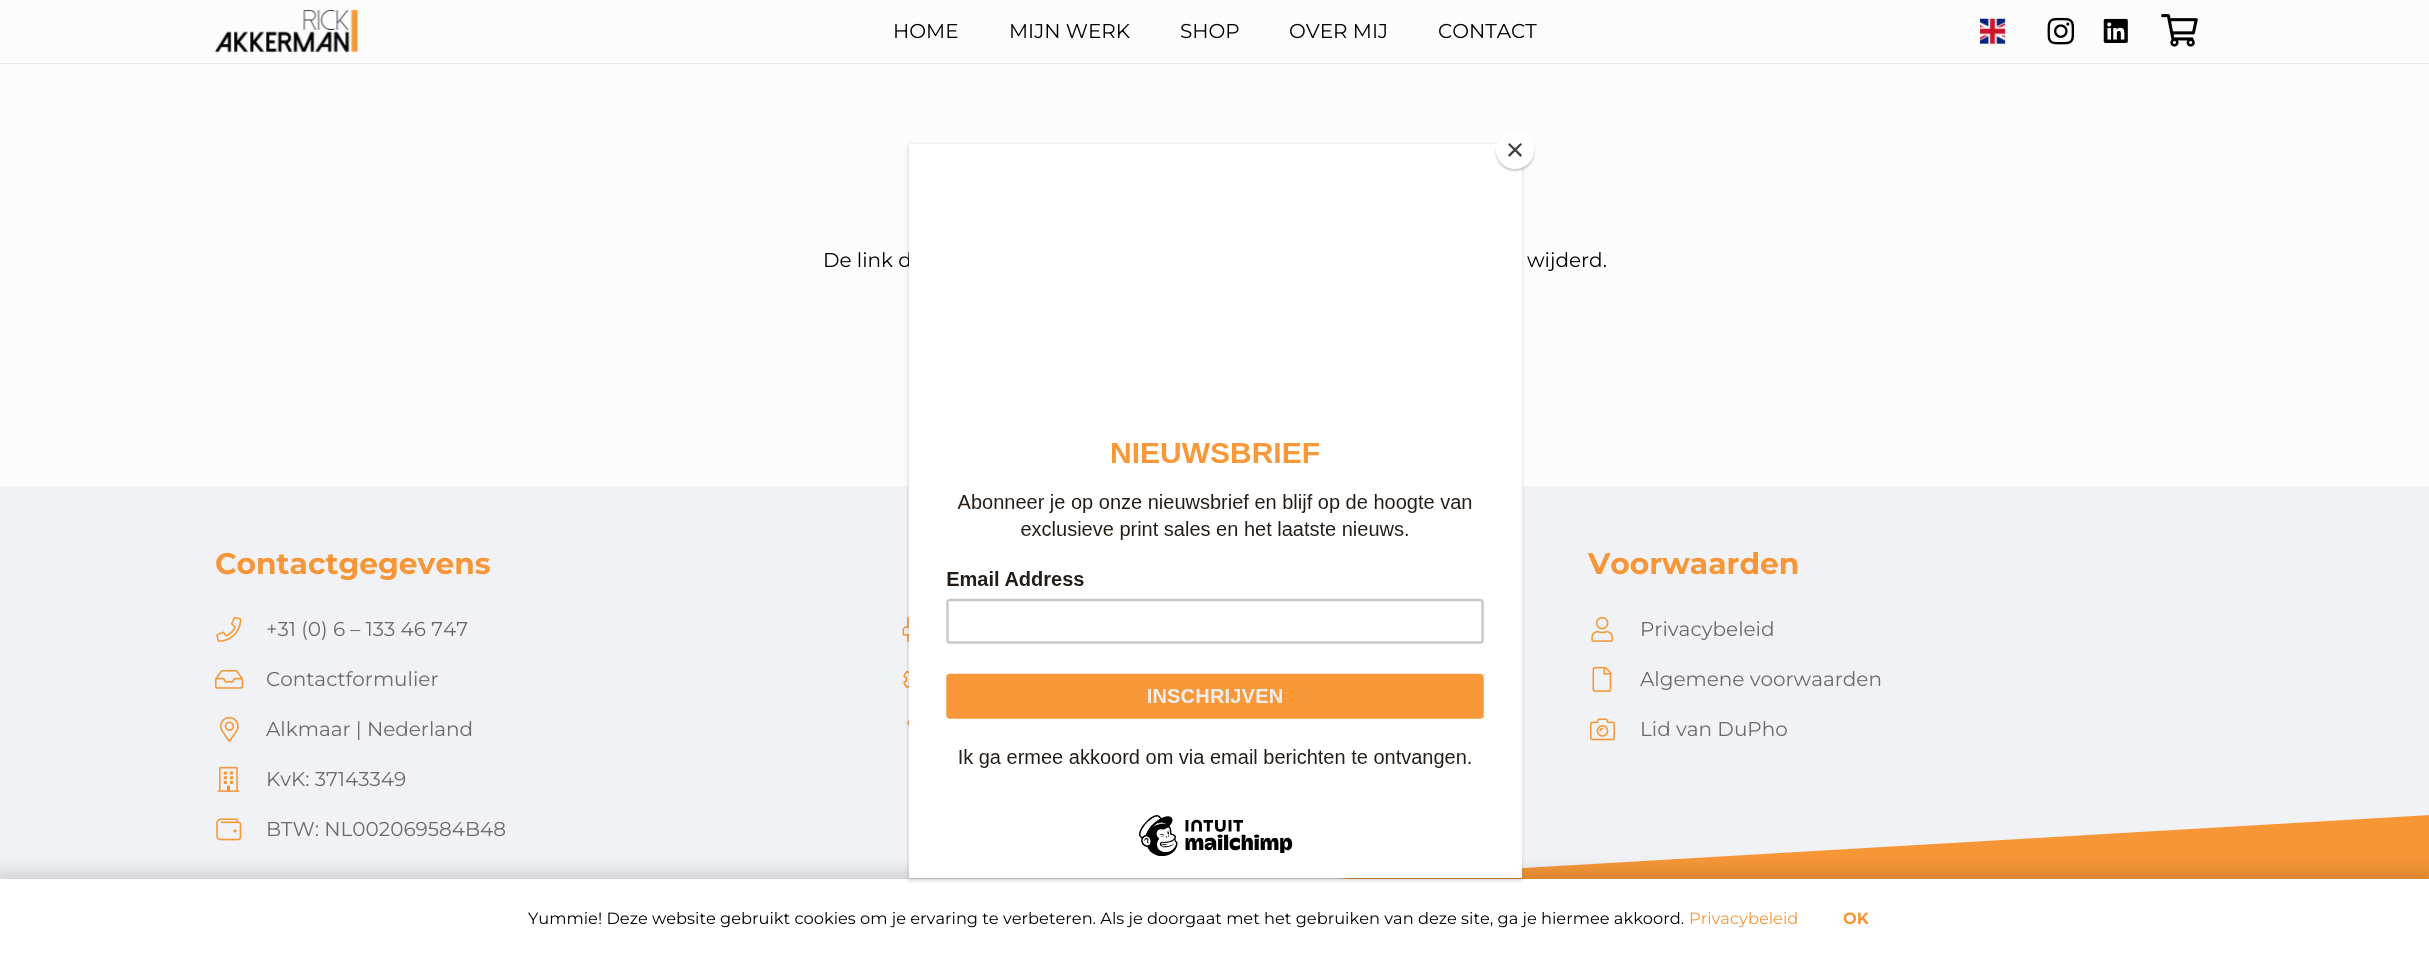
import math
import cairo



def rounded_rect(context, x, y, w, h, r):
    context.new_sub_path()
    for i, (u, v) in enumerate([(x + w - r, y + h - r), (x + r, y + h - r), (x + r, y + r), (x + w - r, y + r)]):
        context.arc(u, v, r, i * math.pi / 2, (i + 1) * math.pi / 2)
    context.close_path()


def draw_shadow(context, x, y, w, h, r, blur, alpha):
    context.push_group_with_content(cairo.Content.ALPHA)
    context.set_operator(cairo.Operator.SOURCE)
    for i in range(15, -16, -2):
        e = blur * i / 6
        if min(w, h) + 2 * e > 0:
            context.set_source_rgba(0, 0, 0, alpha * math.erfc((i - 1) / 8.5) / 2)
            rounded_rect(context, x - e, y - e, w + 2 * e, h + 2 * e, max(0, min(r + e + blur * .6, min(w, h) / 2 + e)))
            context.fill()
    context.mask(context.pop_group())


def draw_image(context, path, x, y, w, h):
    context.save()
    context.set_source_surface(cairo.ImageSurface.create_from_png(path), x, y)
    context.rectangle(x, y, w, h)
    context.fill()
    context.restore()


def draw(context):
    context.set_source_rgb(252 / 255, 252 / 255, 252 / 255)
    context.paint()
    context.set_source_rgb(233 / 255, 233 / 255, 233 / 255)
    context.rectangle(0, 63, 2429, 1)
    context.fill()
    draw_image(context, "images/1.png", 215, 9, 143, 44)
    draw_image(context, "images/2.png", 1980, 18, 26, 26)
    draw_image(context, "images/3.png", 2047, 17, 28, 28)
    draw_image(context, "images/4.png", 2103, 18, 25, 25)
    draw_image(context, "images/5.png", 2161, 14, 37, 33)
    context.set_source_rgb(240 / 255, 242 / 255, 245 / 255)
    context.rectangle(0, 486, 2429, 393)
    context.fill()
    draw_image(context, "images/12.png", 902, 616, 7, 26)
    draw_image(context, "images/13.png", 903, 670, 6, 18)
    draw_image(context, "images/14.png", 907, 720, 2, 6)
    context.set_source_rgb(246 / 255, 150 / 255, 55 / 255)
    context.new_path()
    context.move_to(0, 957)
    context.line_to(0, 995)
    context.line_to(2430, 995)
    context.line_to(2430, 815)
    context.close_path()
    context.fill()
    context.set_source_rgb(0, 0, 0)
    draw_shadow(context, 0, 873, 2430, 78, 0, 9.5, 0.15)
    context.set_source_rgb(1, 1, 1)
    context.rectangle(0, 879, 2429, 78)
    context.fill()
    context.set_source_rgb(0, 0, 0)
    draw_shadow(context, 909, 146, 612, 734, 0, 2.5, 0.2)
    draw_image(context, "images/7.png", 216, 616, 26, 26)
    draw_image(context, "images/8.png", 215, 670, 29, 19)
    draw_image(context, "images/9.png", 220, 716, 19, 26)
    draw_image(context, "images/10.png", 217, 766, 23, 26)
    draw_image(context, "images/11.png", 216, 818, 26, 23)
    draw_image(context, "images/15.png", 1591, 616, 23, 26)
    draw_image(context, "images/16.png", 1592, 666, 20, 26)
    draw_image(context, "images/17.png", 1590, 718, 25, 23)
    context.select_font_face("Montserrat Thin")
    context.set_font_size(20)
    context.set_source_rgb(0, 0, 0)
    context.move_to(893, 38)
    context.show_text("HOME")
    context.move_to(1009, 38)
    context.show_text("MIJN WERK")
    context.move_to(1180, 38)
    context.show_text("SHOP")
    context.move_to(1289, 38)
    context.show_text("OVER MIJ")
    context.move_to(1438, 38)
    context.show_text("CONTACT")
    context.move_to(823, 267)
    context.show_text("De link d")
    context.move_to(1527, 267)
    context.show_text("wijderd.")
    draw_image(context, "images/6.png", 909, 144, 613, 734)
    context.set_source_rgb(0, 0, 0)
    draw_shadow(context, 1496, 134, 38, 37, 18.5, 1, 0.2)
    context.set_source_rgb(1, 1, 1)
    context.arc(1515, 150, 19, 0, 2 * math.pi)
    context.fill()
    context.set_source_rgb(65 / 255, 65 / 255, 65 / 255)
    context.new_path()
    context.move_to(1520.5, 143)
    context.line_to(1522, 144.5)
    context.line_to(1509.5, 157)
    context.line_to(1508, 155)
    context.close_path()
    context.fill()
    context.new_path()
    context.move_to(1508, 144.5)
    context.line_to(1509.5, 143)
    context.line_to(1522, 155)
    context.line_to(1520.5, 157)
    context.close_path()
    context.fill()
    context.select_font_face("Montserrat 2 Thin")
    context.set_font_size(29.75)
    context.set_source_rgb(246 / 255, 150 / 255, 55 / 255)
    context.move_to(215, 574)
    context.show_text("Contactgegevens")
    context.select_font_face("Montserrat Thin")
    context.set_font_size(20)
    context.set_source_rgb(106 / 255, 106 / 255, 106 / 255)
    context.move_to(266, 636)
    context.show_text("+31 (0) 6 – 133 46 747")
    context.move_to(266, 686)
    context.show_text("Contactformulier")
    context.move_to(266, 736)
    context.show_text("Alkmaar | Nederland")
    context.move_to(266, 786)
    context.show_text("KvK: 37143349")
    context.move_to(266, 836)
    context.show_text("BTW: NL002069584B48")
    context.select_font_face("Montserrat 2 Thin")
    context.set_font_size(29.75)
    context.set_source_rgb(246 / 255, 150 / 255, 55 / 255)
    context.move_to(1588, 574)
    context.show_text("Voorwaarden")
    context.select_font_face("Montserrat Thin")
    context.set_font_size(20)
    context.set_source_rgb(106 / 255, 106 / 255, 106 / 255)
    context.move_to(1640, 636)
    context.show_text("Privacybeleid")
    context.move_to(1640, 686)
    context.show_text("Algemene voorwaarden")
    context.move_to(1640, 736)
    context.show_text("Lid van DuPho")
    context.set_font_size(16.25)
    context.set_source_rgb(0, 0, 0)
    context.move_to(528, 924)
    context.show_text("Yummie! Deze website gebruikt cookies om je ervaring te verbeteren. Als je doorgaat met het gebruiken van deze site, ga je hiermee akkoord.")
    context.set_source_rgb(246 / 255, 150 / 255, 55 / 255)
    context.move_to(1689, 924)
    context.show_text("Privacybeleid")
    context.select_font_face("Montserrat 2 Thin")
    context.move_to(1843, 924)
    context.show_text("OK")


surface = cairo.ImageSurface(cairo.Format.RGB24, 2429, 957)
context = cairo.Context(surface)
options = cairo.FontOptions()
options.set_hint_metrics(cairo.HintMetrics.OFF)
options.set_hint_style(cairo.HintStyle.NONE)
context.set_font_options(options)
context.set_miter_limit(4)
draw(context)
surface.write_to_png("out.png")
